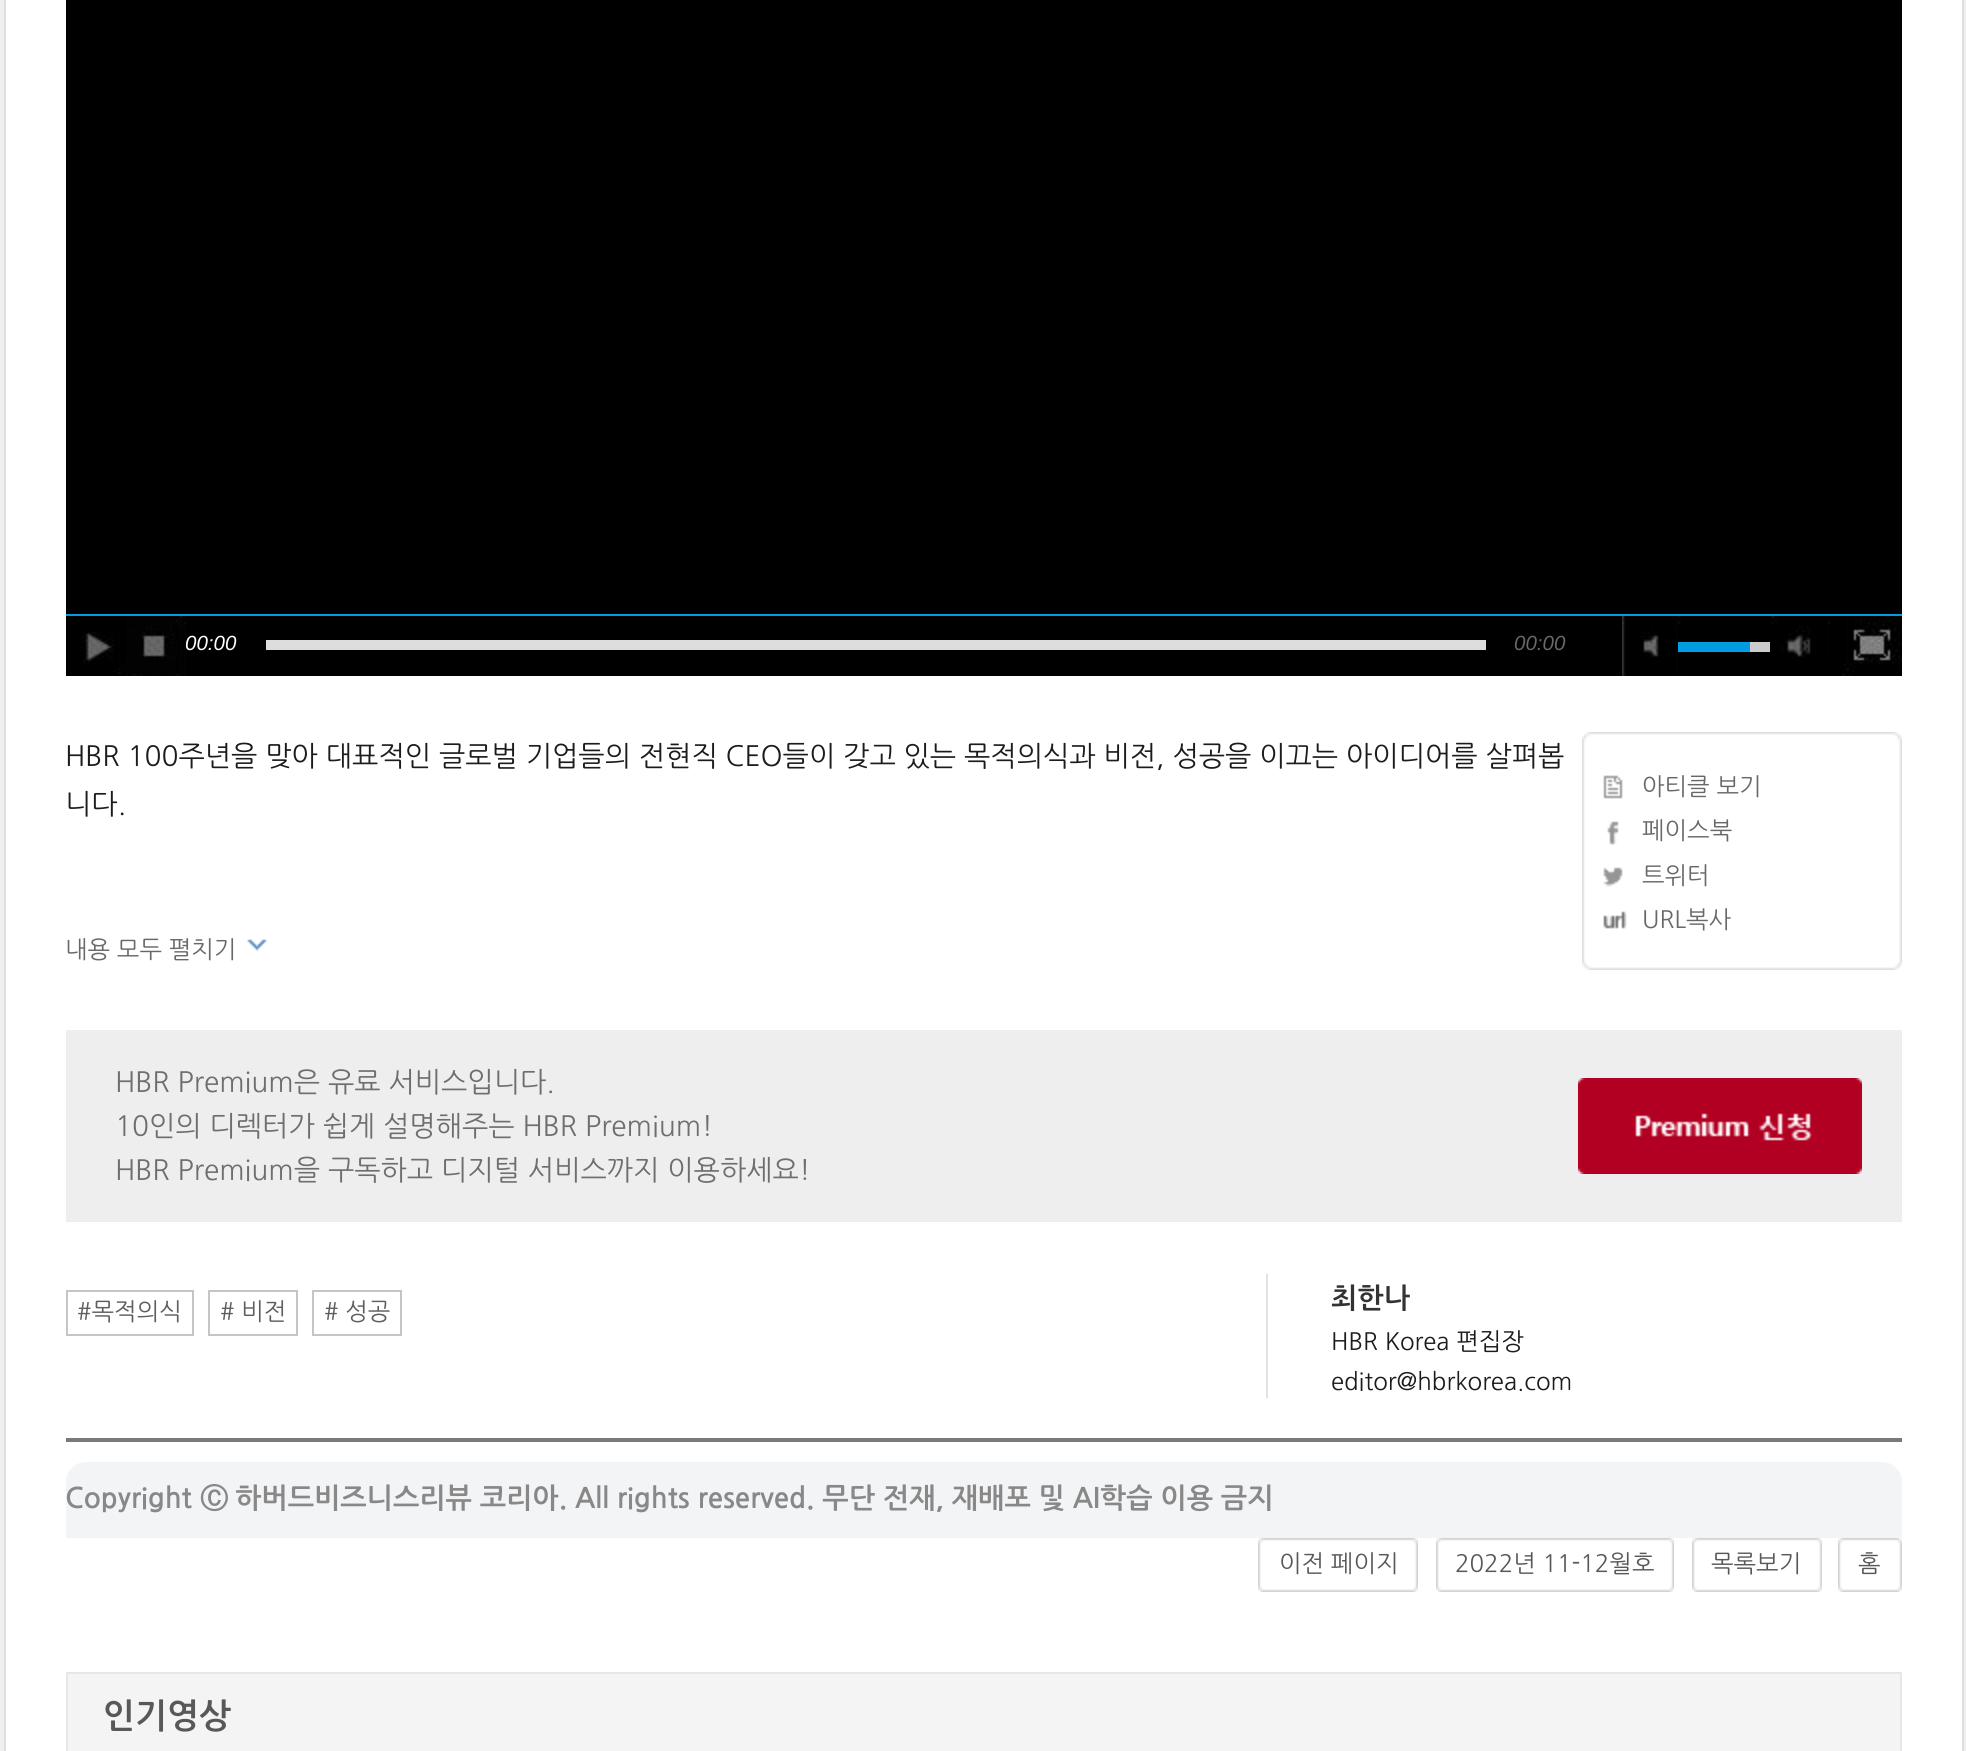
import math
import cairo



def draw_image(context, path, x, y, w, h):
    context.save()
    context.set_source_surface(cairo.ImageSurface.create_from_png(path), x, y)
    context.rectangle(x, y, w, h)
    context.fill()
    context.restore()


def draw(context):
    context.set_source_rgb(239 / 255, 239 / 255, 239 / 255)
    context.paint()
    context.set_source_rgb(1, 1, 1)
    context.rectangle(5, -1, 1958, 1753)
    context.fill_preserve()
    context.set_source_rgb(223 / 255, 223 / 255, 223 / 255)
    context.stroke()
    context.set_source_rgb(0, 0, 0)
    context.rectangle(66, 0, 1836, 614)
    context.fill()
    context.rectangle(66, 616, 1776, 60)
    context.fill()
    context.set_source_rgb(0, 155 / 255, 227 / 255)
    context.rectangle(66, 614, 1836, 2)
    context.fill()
    draw_image(context, "images/1.png", 82, 632, 44, 43)
    draw_image(context, "images/2.png", 126, 616, 60, 60)
    draw_image(context, "images/3.png", 1622, 616, 59, 60)
    draw_image(context, "images/4.png", 1750, 642, 20, 10)
    draw_image(context, "images/5.png", 1678, 642, 72, 10)
    draw_image(context, "images/6.png", 1770, 616, 60, 42)
    draw_image(context, "images/7.png", 1842, 616, 60, 60)
    context.set_source_rgb(221 / 255, 221 / 255, 221 / 255)
    context.rectangle(266, 640, 1220, 10)
    context.fill()
    draw_image(context, "images/8.png", 1582, 732, 320, 20)
    draw_image(context, "images/9.png", 1582, 752, 320, 218)
    draw_image(context, "images/10.png", 1603, 775, 20, 24)
    draw_image(context, "images/11.png", 1607, 821, 12, 24)
    draw_image(context, "images/12.png", 1603, 867, 20, 20)
    draw_image(context, "images/13.png", 1603, 911, 24, 18)
    draw_image(context, "images/14.png", 247, 939, 20, 12)
    context.set_source_rgb(238 / 255, 238 / 255, 238 / 255)
    context.rectangle(66, 1030, 1836, 192)
    context.fill()
    draw_image(context, "images/15.png", 1578, 1078, 284, 96)
    context.rectangle(67, 1291, 126, 44)
    context.set_source_rgb(197 / 255, 197 / 255, 197 / 255)
    context.stroke()
    context.rectangle(209, 1291, 88, 44)
    context.stroke()
    context.rectangle(313, 1291, 88, 44)
    context.stroke()
    context.set_source_rgb(227 / 255, 227 / 255, 227 / 255)
    context.rectangle(1266, 1274, 2, 124)
    context.fill()
    context.set_source_rgb(121 / 255, 121 / 255, 121 / 255)
    context.rectangle(66, 1438, 1836, 4)
    context.fill()
    context.set_source_rgb(243 / 255, 244 / 255, 246 / 255)
    context.new_path()
    context.move_to(86, 1462)
    context.line_to(1882, 1462)
    context.curve_to(1893, 1462, 1902, 1471, 1902, 1482)
    context.line_to(1902, 1538)
    context.line_to(66, 1538)
    context.line_to(66, 1482)
    context.curve_to(66, 1471, 75, 1462, 86, 1462)
    context.close_path()
    context.fill()
    draw_image(context, "images/16.png", 1258, 1538, 60, 54)
    draw_image(context, "images/17.png", 1318, 1538, 100, 54)
    draw_image(context, "images/16.png", 1436, 1538, 60, 54)
    draw_image(context, "images/18.png", 1496, 1538, 178, 54)
    draw_image(context, "images/16.png", 1692, 1538, 60, 54)
    draw_image(context, "images/19.png", 1752, 1538, 70, 54)
    draw_image(context, "images/20.png", 1838, 1538, 59, 54)
    draw_image(context, "images/21.png", 1897, 1538, 5, 54)
    context.rectangle(67, 1673, 1834, 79)
    context.set_source_rgb(231 / 255, 231 / 255, 231 / 255)
    context.stroke()
    context.set_source_rgb(244 / 255, 244 / 255, 244 / 255)
    context.rectangle(68, 1674, 1832, 77)
    context.fill()
    context.select_font_face("Liberation Sans", cairo.FontSlant.ITALIC)
    context.set_font_size(20.5)
    context.set_source_rgb(1, 1, 1)
    context.move_to(185, 650)
    context.show_text("00:00")
    context.set_source_rgb(104 / 255, 104 / 255, 104 / 255)
    context.move_to(1514, 650)
    context.show_text("00:00")
    context.select_font_face("NanumGothic")
    context.set_font_size(28)
    context.set_source_rgb(29 / 255, 27 / 255, 28 / 255)
    context.move_to(65, 766)
    context.show_text("HBR 100주년을 맞아 대표적인 글로벌 기업들의 전현직 CEO들이 갖고 있는 목적의식과 비전, 성공을 이끄는 아이디어를 살펴봅")
    context.move_to(65, 814)
    context.show_text("니다.")
    context.set_font_size(24)
    context.set_source_rgb(104 / 255, 104 / 255, 104 / 255)
    context.move_to(1642, 795)
    context.show_text("아티클 보기")
    context.move_to(1642, 839)
    context.show_text("페이스북")
    context.move_to(1642, 884)
    context.show_text("트위터")
    context.move_to(1642, 928)
    context.show_text("URL복사")
    context.move_to(65, 958)
    context.show_text("내용 모두 펼치기")
    context.set_font_size(28)
    context.set_source_rgb(110 / 255, 110 / 255, 110 / 255)
    context.move_to(115, 1092)
    context.show_text("HBR Premium은 유료 서비스입니다.")
    context.move_to(115, 1136)
    context.show_text("10인의 디렉터가 쉽게 설명해주는 HBR Premium!")
    context.move_to(115, 1180)
    context.show_text("HBR Premium을 구독하고 디지털 서비스까지 이용하세요!")
    context.set_font_size(24)
    context.set_source_rgb(94 / 255, 94 / 255, 94 / 255)
    context.move_to(77, 1320)
    context.show_text("#목적의식")
    context.move_to(220, 1320)
    context.show_text("# 비전")
    context.move_to(324, 1320)
    context.show_text("# 성공")
    context.select_font_face("NanumGothic", cairo.FontSlant.NORMAL, cairo.FontWeight.BOLD)
    context.set_font_size(28)
    context.set_source_rgb(51 / 255, 51 / 255, 51 / 255)
    context.move_to(1331, 1308)
    context.show_text("최한나")
    context.select_font_face("NanumGothic")
    context.set_font_size(24)
    context.set_source_rgb(29 / 255, 27 / 255, 28 / 255)
    context.move_to(1331, 1350)
    context.show_text("HBR Korea 편집장")
    context.move_to(1331, 1390)
    context.show_text("editor@hbrkorea.com")
    context.select_font_face("NanumGothic", cairo.FontSlant.NORMAL, cairo.FontWeight.BOLD)
    context.set_font_size(28)
    context.set_source_rgb(136 / 255, 136 / 255, 136 / 255)
    context.move_to(65, 1508)
    context.show_text("Copyright")
    context.select_font_face("WenQuanYi Zen Hei", cairo.FontSlant.NORMAL, cairo.FontWeight.BOLD)
    context.move_to(200, 1508)
    context.show_text("Ⓒ")
    context.select_font_face("NanumGothic", cairo.FontSlant.NORMAL, cairo.FontWeight.BOLD)
    context.move_to(235, 1508)
    context.show_text("하버드비즈니스리뷰 코리아. All rights reserved. 무단 전재, 재배포 및 AI학습 이용 금지")
    context.select_font_face("NanumGothic")
    context.set_font_size(24)
    context.set_source_rgb(88 / 255, 88 / 255, 88 / 255)
    context.move_to(1279, 1572)
    context.show_text("이전 페이지")
    context.move_to(1455, 1572)
    context.show_text("2022년 11-12월호")
    context.move_to(1711, 1572)
    context.show_text("목록보기")
    context.move_to(1858, 1572)
    context.show_text("홈")
    context.select_font_face("NanumGothic", cairo.FontSlant.NORMAL, cairo.FontWeight.BOLD)
    context.set_font_size(34)
    context.move_to(103, 1728)
    context.show_text("인기영상")


surface = cairo.ImageSurface(cairo.Format.RGB24, 1966, 1751)
context = cairo.Context(surface)
options = cairo.FontOptions()
options.set_hint_metrics(cairo.HintMetrics.OFF)
options.set_hint_style(cairo.HintStyle.NONE)
context.set_font_options(options)
context.set_miter_limit(4)
draw(context)
surface.write_to_png("out.png")
